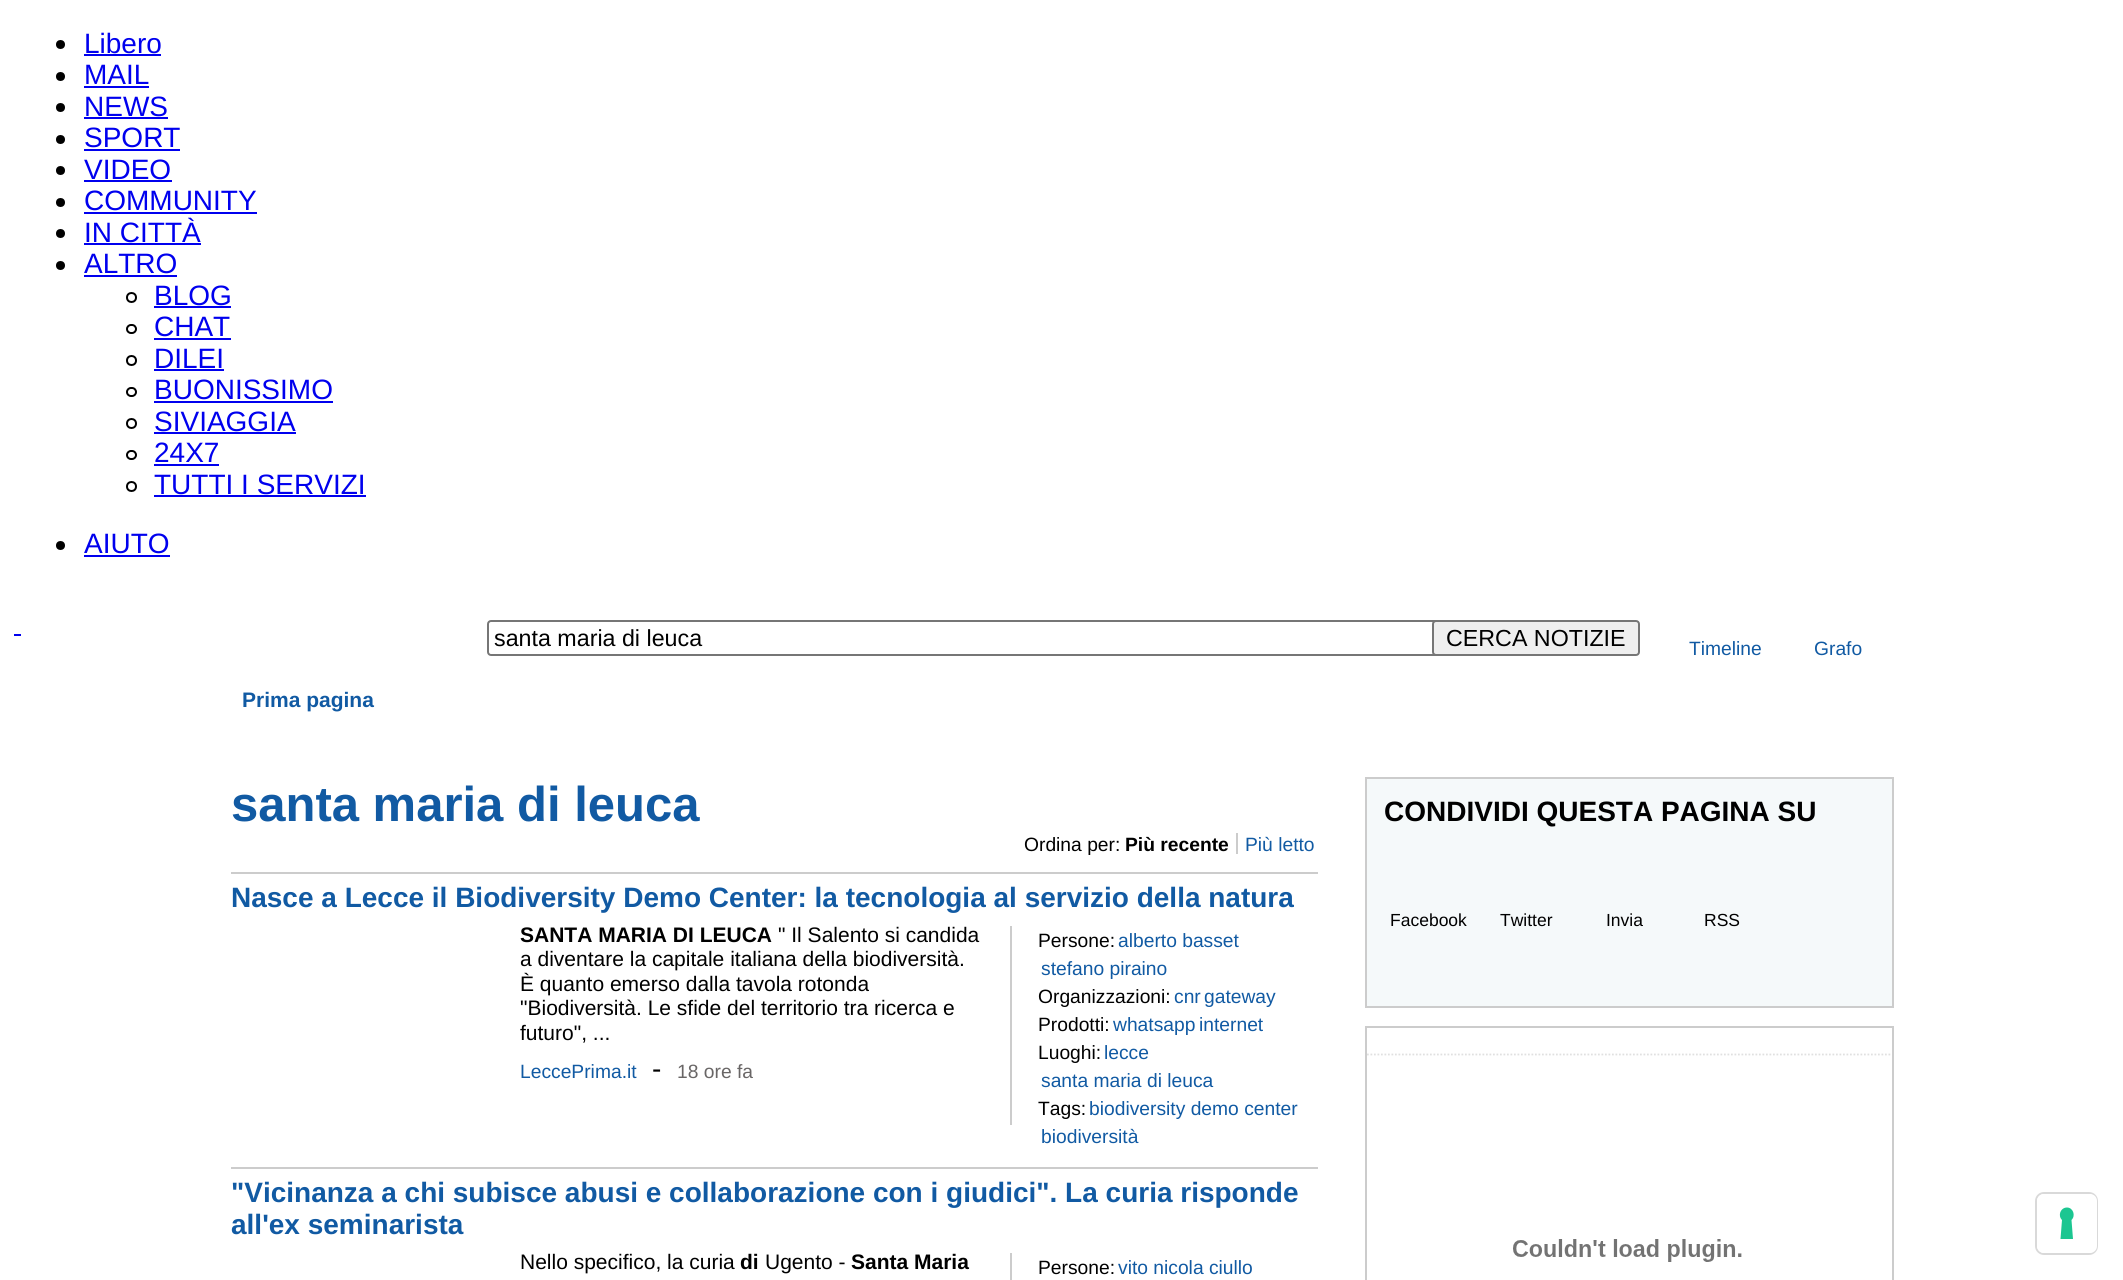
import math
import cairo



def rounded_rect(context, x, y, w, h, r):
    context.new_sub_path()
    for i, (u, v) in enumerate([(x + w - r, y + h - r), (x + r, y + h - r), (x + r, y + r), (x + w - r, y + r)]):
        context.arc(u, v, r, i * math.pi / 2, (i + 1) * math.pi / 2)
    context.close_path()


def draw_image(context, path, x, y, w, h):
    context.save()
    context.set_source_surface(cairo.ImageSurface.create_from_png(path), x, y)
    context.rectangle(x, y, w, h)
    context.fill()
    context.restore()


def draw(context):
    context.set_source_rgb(1, 1, 1)
    context.paint()
    context.set_source_rgb(0, 0, 0)
    context.arc(60.5, 44.5, 4.5, 0, 2 * math.pi)
    context.fill()
    context.set_source_rgb(0, 0, 238 / 255)
    context.rectangle(84, 54, 77, 2)
    context.fill()
    context.set_source_rgb(0, 0, 0)
    context.arc(60.5, 76.5, 4.5, 0, 2 * math.pi)
    context.fill()
    context.set_source_rgb(0, 0, 238 / 255)
    context.rectangle(84, 86, 65, 2)
    context.fill()
    context.set_source_rgb(0, 0, 0)
    context.arc(60.5, 107.5, 4.5, 0, 2 * math.pi)
    context.fill()
    context.set_source_rgb(0, 0, 238 / 255)
    context.rectangle(84, 117, 84, 2)
    context.fill()
    context.set_source_rgb(0, 0, 0)
    context.arc(60.5, 139.5, 4.5, 0, 2 * math.pi)
    context.fill()
    context.set_source_rgb(0, 0, 238 / 255)
    context.rectangle(84, 149, 96, 2)
    context.fill()
    context.set_source_rgb(0, 0, 0)
    context.arc(60.5, 170.5, 4.5, 0, 2 * math.pi)
    context.fill()
    context.set_source_rgb(0, 0, 238 / 255)
    context.rectangle(84, 180, 88, 2)
    context.fill()
    context.set_source_rgb(0, 0, 0)
    context.arc(60.5, 202.5, 4.5, 0, 2 * math.pi)
    context.fill()
    context.set_source_rgb(0, 0, 238 / 255)
    context.rectangle(84, 212, 173, 2)
    context.fill()
    context.set_source_rgb(0, 0, 0)
    context.arc(60.5, 233.5, 4.5, 0, 2 * math.pi)
    context.fill()
    context.set_source_rgb(0, 0, 238 / 255)
    context.rectangle(84, 243, 117, 2)
    context.fill()
    context.set_source_rgb(0, 0, 0)
    context.arc(60.5, 265.5, 4.5, 0, 2 * math.pi)
    context.fill()
    context.set_source_rgb(0, 0, 238 / 255)
    context.rectangle(84, 275, 93, 2)
    context.fill()
    context.arc(131.5, 297.5, 4.5, 0, 2 * math.pi)
    context.set_source_rgb(0, 0, 0)
    context.stroke()
    context.set_source_rgb(0, 0, 238 / 255)
    context.rectangle(154, 306, 77, 2)
    context.fill()
    rounded_rect(context, 127, 325, 9, 8, 4)
    context.set_source_rgb(0, 0, 0)
    context.stroke()
    context.set_source_rgb(0, 0, 238 / 255)
    context.rectangle(154, 338, 77, 2)
    context.fill()
    context.arc(131.5, 360.5, 4.5, 0, 2 * math.pi)
    context.set_source_rgb(0, 0, 0)
    context.stroke()
    context.set_source_rgb(0, 0, 238 / 255)
    context.rectangle(154, 369, 70, 2)
    context.fill()
    rounded_rect(context, 127, 388, 9, 8, 4)
    context.set_source_rgb(0, 0, 0)
    context.stroke()
    context.set_source_rgb(0, 0, 238 / 255)
    context.rectangle(154, 401, 179, 2)
    context.fill()
    context.arc(131.5, 423.5, 4.5, 0, 2 * math.pi)
    context.set_source_rgb(0, 0, 0)
    context.stroke()
    context.set_source_rgb(0, 0, 238 / 255)
    context.rectangle(154, 432, 142, 2)
    context.fill()
    rounded_rect(context, 127, 451, 9, 8, 4)
    context.set_source_rgb(0, 0, 0)
    context.stroke()
    context.set_source_rgb(0, 0, 238 / 255)
    context.rectangle(154, 464, 65, 2)
    context.fill()
    context.arc(131.5, 486.5, 4.5, 0, 2 * math.pi)
    context.set_source_rgb(0, 0, 0)
    context.stroke()
    context.set_source_rgb(0, 0, 238 / 255)
    context.rectangle(154, 495, 212, 2)
    context.fill()
    context.set_source_rgb(0, 0, 0)
    context.arc(60.5, 545.5, 4.5, 0, 2 * math.pi)
    context.fill()
    context.set_source_rgb(0, 0, 238 / 255)
    context.rectangle(84, 555, 86, 2)
    context.fill()
    context.rectangle(14, 634, 7, 2)
    context.fill()
    rounded_rect(context, 488, 621, 957, 34, 3)
    context.set_source_rgb(118 / 255, 118 / 255, 118 / 255)
    context.stroke()
    context.set_source_rgb(239 / 255, 239 / 255, 239 / 255)
    rounded_rect(context, 1433, 621, 206, 34, 3)
    context.fill_preserve()
    context.set_source_rgb(118 / 255, 118 / 255, 118 / 255)
    context.stroke()
    context.set_source_rgb(204 / 255, 204 / 255, 204 / 255)
    context.rectangle(231, 872, 1087, 2)
    context.fill()
    context.rectangle(1236, 833, 2, 21)
    context.fill()
    context.rectangle(231, 1167, 1087, 2)
    context.fill()
    context.rectangle(1010, 926, 2, 199)
    context.fill()
    context.rectangle(1010, 1253, 2, 27)
    context.fill()
    context.rectangle(1366, 778, 527, 229)
    context.stroke()
    context.set_source_rgb(245 / 255, 249 / 255, 250 / 255)
    context.rectangle(1367, 779, 525, 227)
    context.fill()
    context.rectangle(1366, 1027, 527, 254)
    context.set_source_rgb(204 / 255, 204 / 255, 204 / 255)
    context.stroke()
    context.new_path()
    context.move_to(1367, 1054.5)
    context.line_to(1892, 1054.5)
    context.set_source_rgb(224 / 255, 224 / 255, 224 / 255)
    context.set_line_width(1.8)
    context.set_dash([1.75, 1.75])
    context.stroke()
    draw_image(context, "images/1.png", 1513, 1239, 229, 23)
    rounded_rect(context, 2036, 1193, 61, 61, 8)
    context.set_source_rgb(217 / 255, 217 / 255, 217 / 255)
    context.set_line_width(2)
    context.set_dash([])
    context.stroke()
    context.set_source_rgb(1, 1, 1)
    rounded_rect(context, 2037, 1194, 60, 59, 7)
    context.fill()
    context.set_source_rgb(28 / 255, 198 / 255, 145 / 255)
    context.set_fill_rule(cairo.FillRule.EVEN_ODD)
    context.new_path()
    context.move_to(2067, 1207.5)
    context.curve_to(2073, 1207.5, 2076, 1215.5, 2071.5, 1220)
    context.line_to(2073, 1239)
    context.line_to(2060.5, 1239)
    context.line_to(2062, 1220)
    context.curve_to(2057.5, 1215.5, 2060.5, 1207.5, 2067, 1207.5)
    context.close_path()
    context.fill()
    context.select_font_face("Liberation Sans")
    context.set_font_size(28)
    context.set_source_rgb(0, 0, 238 / 255)
    context.move_to(84, 53)
    context.show_text("Libero")
    context.move_to(84, 84)
    context.show_text("MAIL")
    context.move_to(84, 116)
    context.show_text("NEWS")
    context.move_to(84, 147)
    context.show_text("SPORT")
    context.move_to(84, 179)
    context.show_text("VIDEO")
    context.move_to(84, 210)
    context.show_text("COMMUNITY")
    context.move_to(84, 242)
    context.show_text("IN CITTÀ")
    context.move_to(84, 273)
    context.show_text("ALTRO")
    context.move_to(154, 305)
    context.show_text("BLOG")
    context.move_to(154, 336)
    context.show_text("CHAT")
    context.move_to(154, 368)
    context.show_text("DILEI")
    context.move_to(154, 399)
    context.show_text("BUONISSIMO")
    context.move_to(154, 431)
    context.show_text("SIVIAGGIA")
    context.move_to(154, 462)
    context.show_text("24X7")
    context.move_to(154, 494)
    context.show_text("TUTTI I SERVIZI")
    context.move_to(84, 553)
    context.show_text("AIUTO")
    context.set_font_size(23.25)
    context.set_source_rgb(0, 0, 0)
    context.move_to(494, 646)
    context.show_text("santa maria di leuca")
    context.move_to(1446, 646)
    context.show_text("CERCA NOTIZIE")
    context.set_font_size(19.25)
    context.set_source_rgb(17 / 255, 90 / 255, 163 / 255)
    context.move_to(1689, 655)
    context.show_text("Timeline")
    context.move_to(1814, 655)
    context.show_text("Grafo")
    context.select_font_face("Liberation Sans", cairo.FontSlant.NORMAL, cairo.FontWeight.BOLD)
    context.set_font_size(21)
    context.move_to(242, 707)
    context.show_text("Prima pagina")
    context.set_font_size(49)
    context.move_to(231, 821)
    context.show_text("santa maria di leuca")
    context.select_font_face("Liberation Sans")
    context.set_font_size(19.25)
    context.set_source_rgb(0, 0, 0)
    context.move_to(1024, 851)
    context.show_text("Ordina per:")
    context.select_font_face("Liberation Sans", cairo.FontSlant.NORMAL, cairo.FontWeight.BOLD)
    context.move_to(1125, 851)
    context.show_text("Più recente")
    context.select_font_face("Liberation Sans")
    context.set_source_rgb(17 / 255, 90 / 255, 163 / 255)
    context.move_to(1245, 851)
    context.show_text("Più letto")
    context.select_font_face("Liberation Sans", cairo.FontSlant.NORMAL, cairo.FontWeight.BOLD)
    context.set_font_size(28)
    context.move_to(231, 907)
    context.show_text("Nasce a Lecce il Biodiversity Demo Center: la tecnologia al servizio della natura")
    context.set_font_size(21)
    context.set_source_rgb(0, 0, 0)
    context.move_to(520, 942)
    context.show_text("SANTA MARIA DI LEUCA")
    context.select_font_face("Liberation Sans")
    context.move_to(778, 942)
    context.show_text("\" Il Salento si candida")
    context.move_to(520, 966)
    context.show_text("a diventare la capitale italiana della biodiversità.")
    context.move_to(520, 991)
    context.show_text("È quanto emerso dalla tavola rotonda")
    context.move_to(520, 1015)
    context.show_text("\"Biodiversità. Le sfide del territorio tra ricerca e")
    context.move_to(520, 1040)
    context.show_text("futuro\", ...")
    context.set_font_size(19.25)
    context.set_source_rgb(17 / 255, 90 / 255, 163 / 255)
    context.move_to(520, 1078)
    context.show_text("LeccePrima.it")
    context.set_font_size(28)
    context.set_source_rgb(0, 0, 0)
    context.move_to(652, 1078)
    context.show_text("-")
    context.set_font_size(19.25)
    context.set_source_rgb(105 / 255, 102 / 255, 102 / 255)
    context.move_to(677, 1078)
    context.show_text("18 ore fa")
    context.set_source_rgb(0, 0, 0)
    context.move_to(1038, 947)
    context.show_text("Persone:")
    context.set_source_rgb(17 / 255, 90 / 255, 163 / 255)
    context.move_to(1118, 947)
    context.show_text("alberto basset")
    context.move_to(1041, 975)
    context.show_text("stefano piraino")
    context.set_source_rgb(0, 0, 0)
    context.move_to(1038, 1003)
    context.show_text("Organizzazioni:")
    context.set_source_rgb(17 / 255, 90 / 255, 163 / 255)
    context.move_to(1174, 1003)
    context.show_text("cnr")
    context.move_to(1204, 1003)
    context.show_text("gateway")
    context.set_source_rgb(0, 0, 0)
    context.move_to(1038, 1031)
    context.show_text("Prodotti:")
    context.set_source_rgb(17 / 255, 90 / 255, 163 / 255)
    context.move_to(1113, 1031)
    context.show_text("whatsapp")
    context.move_to(1199, 1031)
    context.show_text("internet")
    context.set_source_rgb(0, 0, 0)
    context.move_to(1038, 1059)
    context.show_text("Luoghi:")
    context.set_source_rgb(17 / 255, 90 / 255, 163 / 255)
    context.move_to(1104, 1059)
    context.show_text("lecce")
    context.move_to(1041, 1087)
    context.show_text("santa maria di leuca")
    context.set_source_rgb(0, 0, 0)
    context.move_to(1038, 1115)
    context.show_text("Tags:")
    context.set_source_rgb(17 / 255, 90 / 255, 163 / 255)
    context.move_to(1089, 1115)
    context.show_text("biodiversity demo center")
    context.move_to(1041, 1143)
    context.show_text("biodiversità")
    context.select_font_face("Liberation Sans", cairo.FontSlant.NORMAL, cairo.FontWeight.BOLD)
    context.set_font_size(28)
    context.move_to(231, 1202)
    context.show_text("\"Vicinanza a chi subisce abusi e collaborazione con i giudici\". La curia risponde")
    context.move_to(231, 1234)
    context.show_text("all'ex seminarista")
    context.select_font_face("Liberation Sans")
    context.set_font_size(21)
    context.set_source_rgb(0, 0, 0)
    context.move_to(520, 1269)
    context.show_text("Nello specifico, la curia")
    context.select_font_face("Liberation Sans", cairo.FontSlant.NORMAL, cairo.FontWeight.BOLD)
    context.move_to(740, 1269)
    context.show_text("di")
    context.select_font_face("Liberation Sans")
    context.move_to(765, 1269)
    context.show_text("Ugento -")
    context.select_font_face("Liberation Sans", cairo.FontSlant.NORMAL, cairo.FontWeight.BOLD)
    context.move_to(851, 1269)
    context.show_text("Santa Maria")
    context.select_font_face("Liberation Sans")
    context.set_font_size(19.25)
    context.move_to(1038, 1274)
    context.show_text("Persone:")
    context.set_source_rgb(17 / 255, 90 / 255, 163 / 255)
    context.move_to(1118, 1274)
    context.show_text("vito nicola ciullo")
    context.select_font_face("Liberation Sans", cairo.FontSlant.NORMAL, cairo.FontWeight.BOLD)
    context.set_font_size(28)
    context.set_source_rgb(0, 0, 0)
    context.move_to(1384, 821)
    context.show_text("CONDIVIDI QUESTA PAGINA SU")
    context.select_font_face("Liberation Sans")
    context.set_font_size(17.5)
    context.move_to(1390, 926)
    context.show_text("Facebook")
    context.move_to(1500, 926)
    context.show_text("Twitter")
    context.move_to(1606, 926)
    context.show_text("Invia")
    context.move_to(1704, 926)
    context.show_text("RSS")


surface = cairo.ImageSurface(cairo.Format.RGB24, 2123, 1280)
context = cairo.Context(surface)
options = cairo.FontOptions()
options.set_hint_metrics(cairo.HintMetrics.OFF)
options.set_hint_style(cairo.HintStyle.NONE)
context.set_font_options(options)
context.set_miter_limit(4)
draw(context)
surface.write_to_png("out.png")
